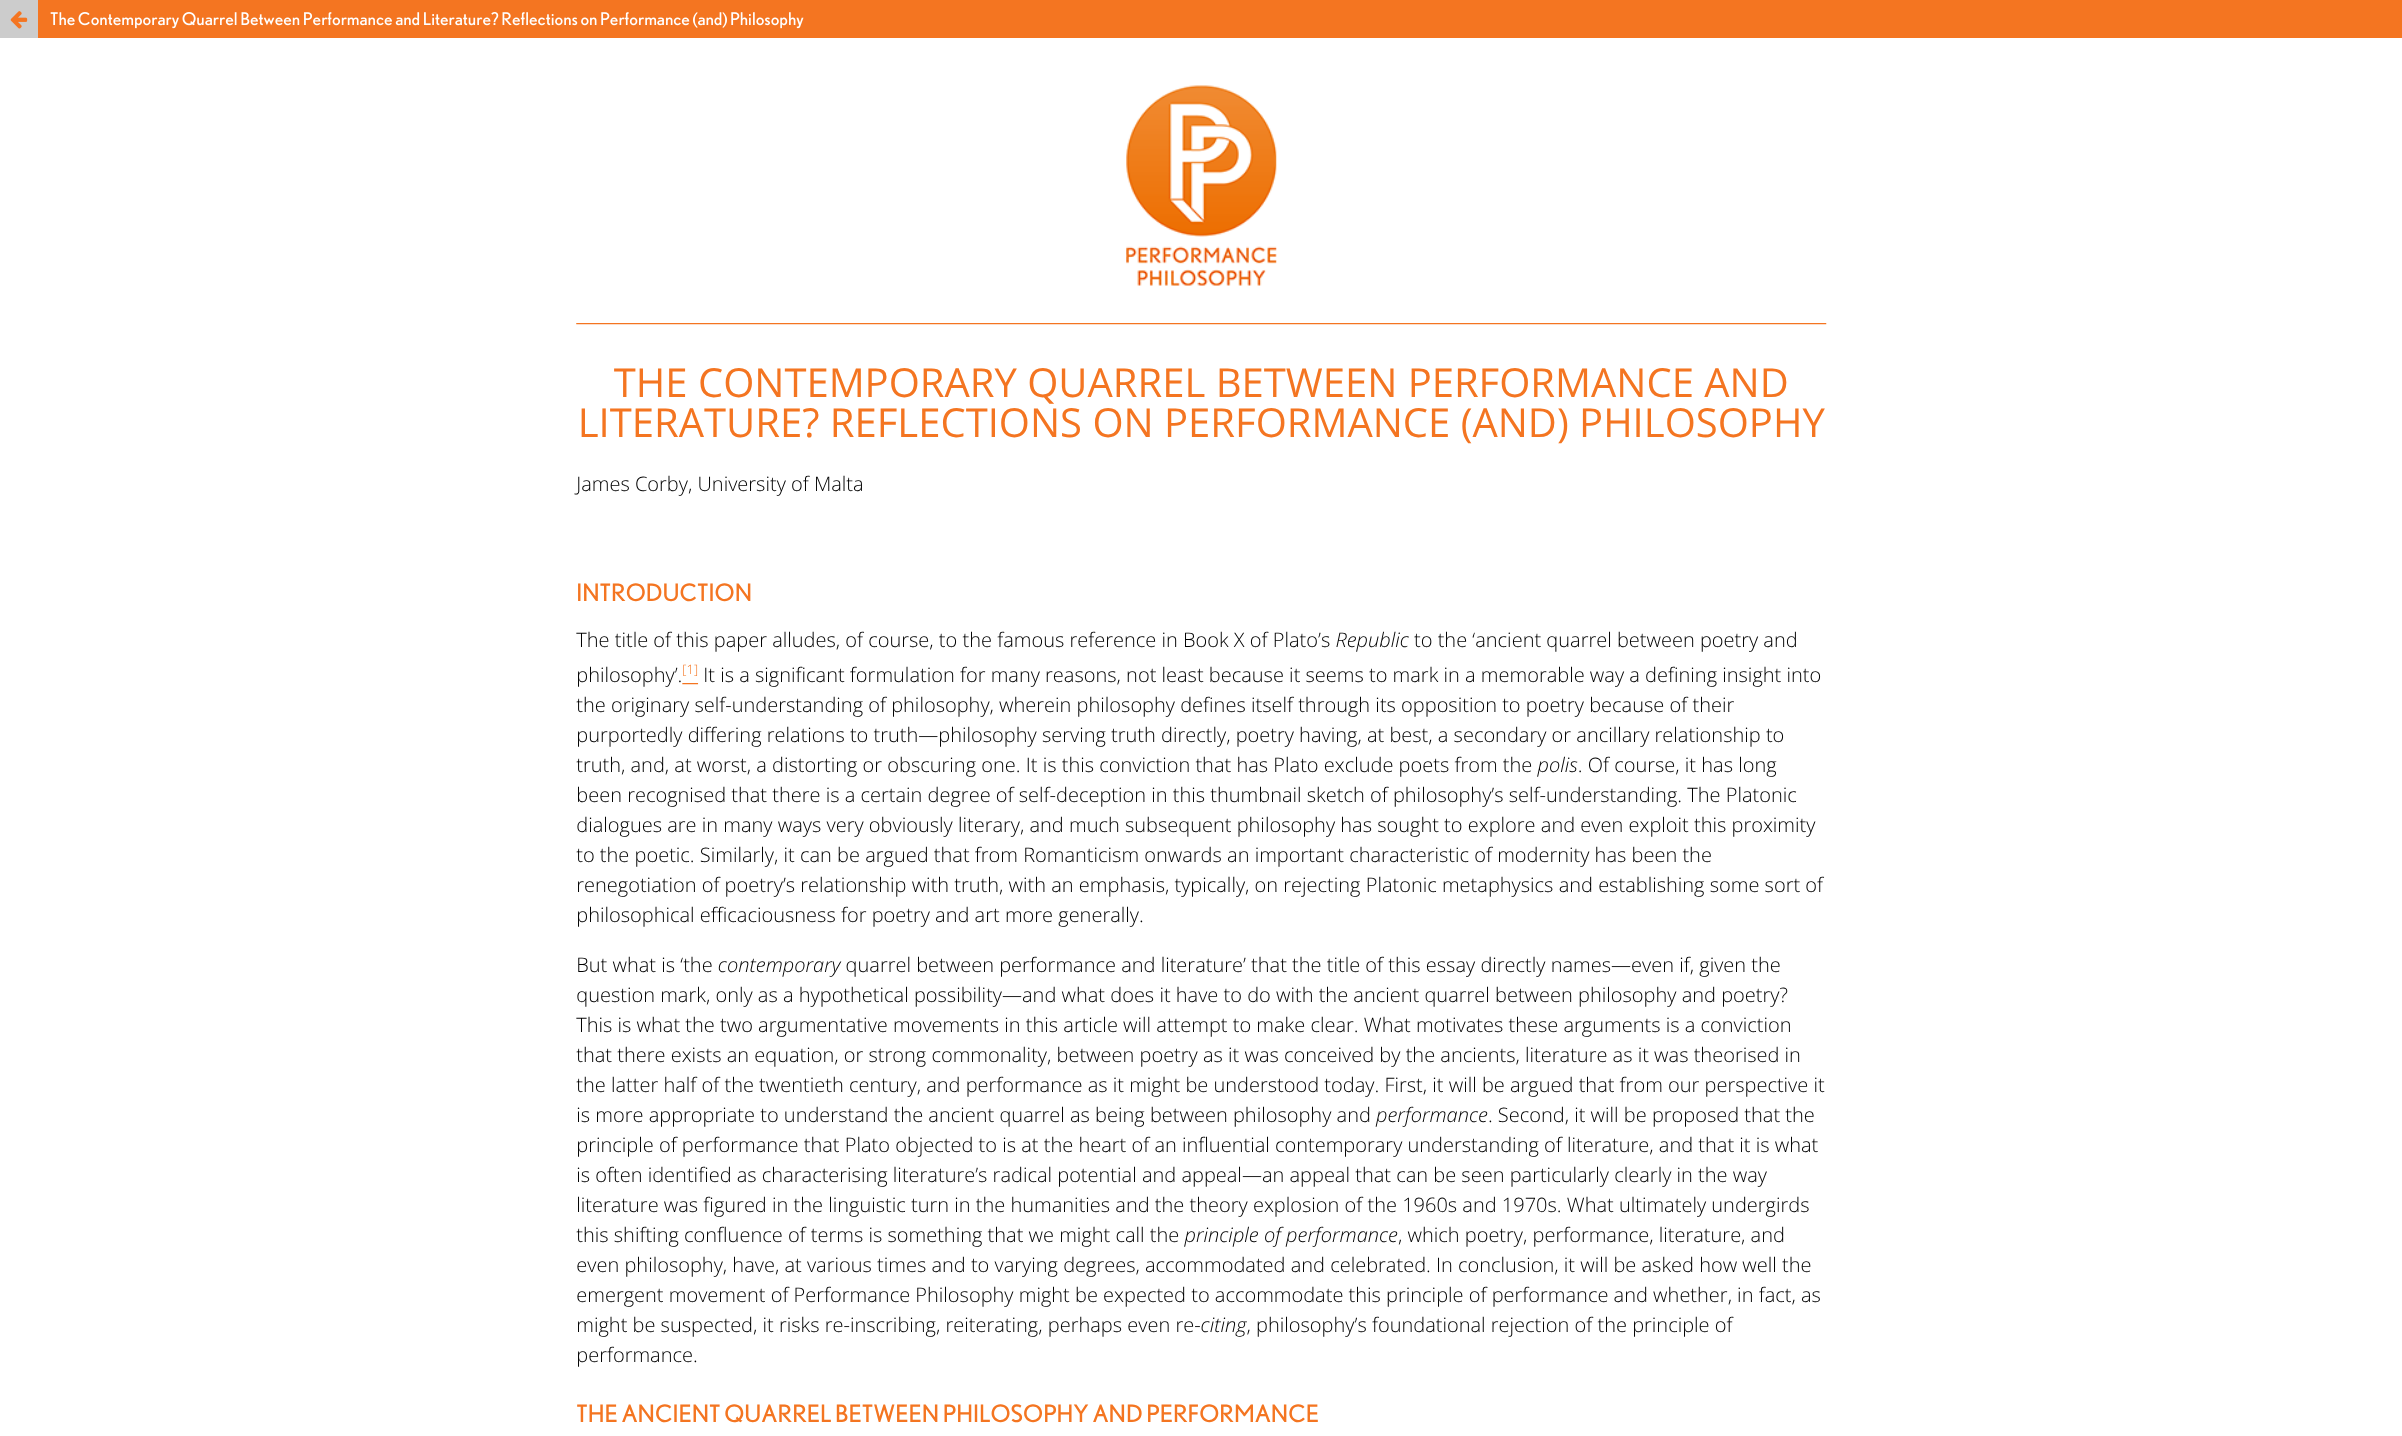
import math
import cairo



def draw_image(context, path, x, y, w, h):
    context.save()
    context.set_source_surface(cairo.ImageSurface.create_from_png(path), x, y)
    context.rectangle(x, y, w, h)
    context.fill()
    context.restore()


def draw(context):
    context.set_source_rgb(1, 1, 1)
    context.paint()
    context.set_source_rgb(244 / 255, 117 / 255, 33 / 255)
    context.rectangle(38, 0, 2364, 38)
    context.fill()
    context.set_source_rgb(204 / 255, 204 / 255, 204 / 255)
    context.rectangle(0, 0, 38, 38)
    context.fill()
    draw_image(context, "images/1.png", 10, 11, 18, 18)
    draw_image(context, "images/2.png", 574, 85, 1253, 1338)
    context.select_font_face("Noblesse")
    context.set_font_size(17.5)
    context.set_source_rgb(1, 1, 1)
    context.move_to(50, 25)
    context.show_text("The Contemporary Quarrel Between Performance and Literature? Reflections on Performance (and) Philosophy")


surface = cairo.ImageSurface(cairo.Format.RGB24, 2402, 1436)
context = cairo.Context(surface)
options = cairo.FontOptions()
options.set_hint_metrics(cairo.HintMetrics.OFF)
options.set_hint_style(cairo.HintStyle.NONE)
context.set_font_options(options)
context.set_miter_limit(4)
draw(context)
surface.write_to_png("out.png")
